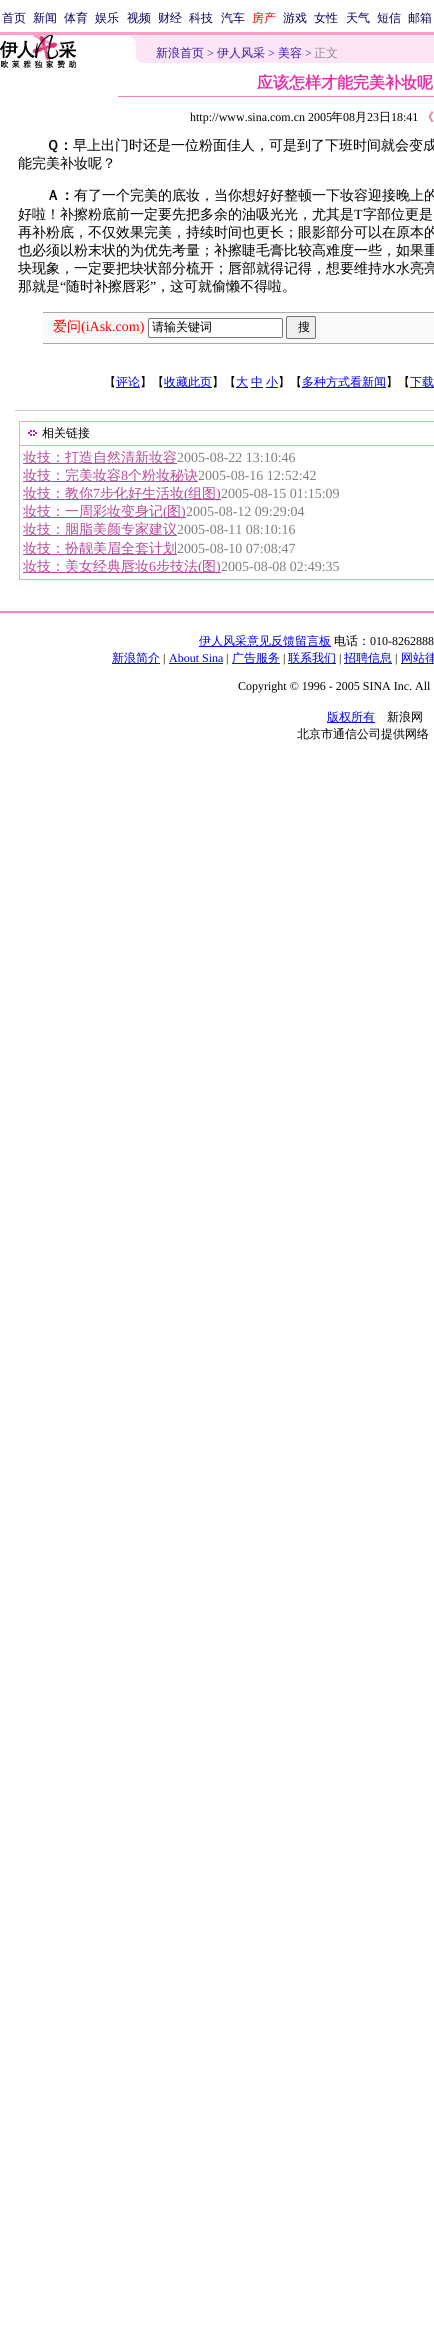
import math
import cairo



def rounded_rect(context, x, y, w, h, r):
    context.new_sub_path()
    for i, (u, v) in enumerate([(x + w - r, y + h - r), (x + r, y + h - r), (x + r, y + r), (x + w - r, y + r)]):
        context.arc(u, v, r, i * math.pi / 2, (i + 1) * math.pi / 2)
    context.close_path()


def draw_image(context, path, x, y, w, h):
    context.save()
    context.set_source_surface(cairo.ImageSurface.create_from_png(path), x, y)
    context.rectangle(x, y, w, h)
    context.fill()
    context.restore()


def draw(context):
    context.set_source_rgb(1, 1, 1)
    context.paint()
    context.set_source_rgb(254 / 255, 159 / 255, 202 / 255)
    context.rectangle(0, 32, 434, 3)
    context.fill()
    draw_image(context, "images/1.png", 0, 35, 76, 33)
    draw_image(context, "images/2.png", 128, 35, 8, 8)
    context.set_source_rgb(253 / 255, 228 / 255, 247 / 255)
    context.rectangle(136, 35, 298, 28)
    context.fill()
    draw_image(context, "images/3.png", 136, 57, 6, 6)
    context.set_source_rgb(254 / 255, 130 / 255, 183 / 255)
    context.rectangle(118, 96, 316, 1)
    context.fill()
    context.set_source_rgb(249 / 255, 249 / 255, 249 / 255)
    context.rectangle(43, 313, 391, 30)
    context.fill()
    context.set_source_rgb(169 / 255, 169 / 255, 169 / 255)
    context.rectangle(43, 312, 391, 1)
    context.fill()
    context.rectangle(43, 343, 391, 1)
    context.fill()
    context.set_source_rgb(1, 1, 1)
    rounded_rect(context, 148.5, 318.5, 134, 19, 1.5)
    context.fill_preserve()
    context.set_source_rgb(118 / 255, 118 / 255, 118 / 255)
    context.set_line_width(1)
    context.stroke()
    context.set_source_rgb(239 / 255, 239 / 255, 239 / 255)
    rounded_rect(context, 286.5, 316.5, 29, 22, 1.5)
    context.fill_preserve()
    context.set_source_rgb(118 / 255, 118 / 255, 118 / 255)
    context.stroke()
    context.set_source_rgb(0, 0, 1)
    context.rectangle(116, 387, 24, 1)
    context.fill()
    context.rectangle(164, 387, 48, 1)
    context.fill()
    context.rectangle(236, 387, 12, 1)
    context.fill()
    context.rectangle(251, 387, 12, 1)
    context.fill()
    context.rectangle(266, 387, 12, 1)
    context.fill()
    context.rectangle(302, 387, 84, 1)
    context.fill()
    context.rectangle(410, 387, 24, 1)
    context.fill()
    context.set_source_rgb(198 / 255, 201 / 255, 209 / 255)
    context.rectangle(15, 410, 419, 1)
    context.fill()
    context.set_source_rgb(254 / 255, 166 / 255, 160 / 255)
    context.rectangle(19, 421, 415, 159)
    context.fill()
    context.set_source_rgb(1, 1, 1)
    context.rectangle(20, 422, 414, 23)
    context.fill()
    draw_image(context, "images/4.png", 28, 430, 9, 6)
    context.rectangle(20, 446, 414, 133)
    context.fill()
    context.set_source_rgb(183 / 255, 73 / 255, 156 / 255)
    context.rectangle(23, 463, 154, 1)
    context.fill()
    context.rectangle(23, 481, 175, 1)
    context.fill()
    context.rectangle(23, 499, 198, 1)
    context.fill()
    context.rectangle(23, 517, 163, 1)
    context.fill()
    context.rectangle(23, 535, 154, 1)
    context.fill()
    context.rectangle(23, 554, 154, 1)
    context.fill()
    context.rectangle(23, 572, 198, 1)
    context.fill()
    context.set_source_rgb(254 / 255, 130 / 255, 183 / 255)
    context.rectangle(0, 611, 434, 2)
    context.fill()
    context.set_source_rgb(0, 0, 1)
    context.rectangle(199, 646, 132, 1)
    context.fill()
    context.rectangle(112, 663, 48, 1)
    context.fill()
    context.rectangle(169, 663, 54, 1)
    context.fill()
    context.rectangle(232, 663, 48, 1)
    context.fill()
    context.rectangle(288, 663, 48, 1)
    context.fill()
    context.rectangle(344, 663, 48, 1)
    context.fill()
    context.rectangle(401, 663, 33, 1)
    context.fill()
    context.rectangle(327, 722, 48, 1)
    context.fill()
    context.select_font_face("WenQuanYi Zen Hei Medium")
    context.set_font_size(12)
    context.set_source_rgb(7 / 255, 1 / 255, 91 / 255)
    context.move_to(2, 22)
    context.show_text("首页")
    context.move_to(33, 22)
    context.show_text("新闻")
    context.move_to(64, 22)
    context.show_text("体育")
    context.move_to(95, 22)
    context.show_text("娱乐")
    context.move_to(127, 22)
    context.show_text("视频")
    context.move_to(158, 22)
    context.show_text("财经")
    context.move_to(189, 22)
    context.show_text("科技")
    context.move_to(221, 22)
    context.show_text("汽车")
    context.set_source_rgb(1, 0, 0)
    context.move_to(252, 22)
    context.show_text("房产")
    context.set_source_rgb(7 / 255, 1 / 255, 91 / 255)
    context.move_to(283, 22)
    context.show_text("游戏")
    context.move_to(314, 22)
    context.show_text("女性")
    context.move_to(346, 22)
    context.show_text("天气")
    context.move_to(377, 22)
    context.show_text("短信")
    context.move_to(408, 22)
    context.show_text("邮箱")
    context.set_source_rgb(49 / 255, 27 / 255, 173 / 255)
    context.move_to(156, 57)
    context.show_text("新浪首页")
    context.select_font_face("Liberation Serif")
    context.move_to(207, 57)
    context.show_text(">")
    context.select_font_face("WenQuanYi Zen Hei Medium")
    context.move_to(217, 57)
    context.show_text("伊人风采")
    context.select_font_face("Liberation Serif")
    context.move_to(268, 57)
    context.show_text(">")
    context.select_font_face("WenQuanYi Zen Hei Medium")
    context.move_to(278, 57)
    context.show_text("美容")
    context.select_font_face("Liberation Serif")
    context.move_to(305, 57)
    context.show_text(">")
    context.select_font_face("WenQuanYi Zen Hei Medium")
    context.set_source_rgb(137 / 255, 138 / 255, 142 / 255)
    context.move_to(314, 57)
    context.show_text("正文")
    context.select_font_face("WenQuanYi Zen Hei", cairo.FontSlant.NORMAL, cairo.FontWeight.BOLD)
    context.set_font_size(16)
    context.set_source_rgb(229 / 255, 48 / 255, 166 / 255)
    context.move_to(257, 88)
    context.show_text("应该怎样才能完美补妆呢")
    context.select_font_face("Liberation Serif")
    context.set_font_size(12)
    context.set_source_rgb(0, 0, 0)
    context.move_to(190, 121)
    context.show_text("http://www.sina.com.cn 2005")
    context.select_font_face("WenQuanYi Zen Hei Medium")
    context.move_to(331, 121)
    context.show_text("年")
    context.select_font_face("Liberation Serif")
    context.move_to(343, 121)
    context.show_text("08")
    context.select_font_face("WenQuanYi Zen Hei Medium")
    context.move_to(355, 121)
    context.show_text("月")
    context.select_font_face("Liberation Serif")
    context.move_to(367, 121)
    context.show_text("23")
    context.select_font_face("WenQuanYi Zen Hei Medium")
    context.move_to(379, 121)
    context.show_text("日")
    context.select_font_face("Liberation Serif")
    context.move_to(391, 121)
    context.show_text("18:41")
    context.select_font_face("WenQuanYi Zen Hei Medium")
    context.set_source_rgb(162 / 255, 0, 16 / 255)
    context.move_to(422, 121)
    context.show_text("《")
    context.select_font_face("WenQuanYi Zen Hei", cairo.FontSlant.NORMAL, cairo.FontWeight.BOLD)
    context.set_font_size(14)
    context.set_source_rgb(0, 0, 0)
    context.move_to(46, 150)
    context.show_text("Ｑ：")
    context.select_font_face("WenQuanYi Zen Hei Medium")
    context.move_to(73, 150)
    context.show_text("早上出门时还是一位粉面佳人，可是到了下班时间就会变成")
    context.move_to(18, 168)
    context.show_text("能完美补妆呢？")
    context.select_font_face("WenQuanYi Zen Hei", cairo.FontSlant.NORMAL, cairo.FontWeight.BOLD)
    context.move_to(46, 200)
    context.show_text("Ａ：")
    context.select_font_face("WenQuanYi Zen Hei Medium")
    context.move_to(74, 200)
    context.show_text("有了一个完美的底妆，当你想好好整顿一下妆容迎接晚上的")
    context.move_to(18, 219)
    context.show_text("好啦！补擦粉底前一定要先把多余的油吸光光，尤其是")
    context.select_font_face("Liberation Serif")
    context.move_to(354, 219)
    context.show_text("T")
    context.select_font_face("WenQuanYi Zen Hei Medium")
    context.move_to(363, 219)
    context.show_text("字部位更是")
    context.move_to(18, 237)
    context.show_text("再补粉底，不仅效果完美，持续时间也更长；眼影部分可以在原本的")
    context.move_to(18, 255)
    context.show_text("也必须以粉末状的为优先考量；补擦睫毛膏比较高难度一些，如果重")
    context.move_to(18, 273)
    context.show_text("块现象，一定要把块状部分梳开；唇部就得记得，想要维持水水亮亮")
    context.move_to(18, 291)
    context.show_text("那就是")
    context.select_font_face("Liberation Serif")
    context.move_to(60, 291)
    context.show_text("“")
    context.select_font_face("WenQuanYi Zen Hei Medium")
    context.move_to(66, 291)
    context.show_text("随时补擦唇彩")
    context.select_font_face("Liberation Serif")
    context.move_to(150, 291)
    context.show_text("”")
    context.select_font_face("WenQuanYi Zen Hei Medium")
    context.move_to(156, 291)
    context.show_text("，这可就偷懒不得啦。")
    context.set_source_rgb(1, 0, 0)
    context.move_to(53, 331)
    context.show_text("爱问")
    context.select_font_face("Liberation Serif")
    context.move_to(81, 331)
    context.show_text("(iAsk.com)")
    context.select_font_face("WenQuanYi Zen Hei Medium")
    context.set_font_size(12)
    context.set_source_rgb(0, 0, 0)
    context.move_to(152, 331)
    context.show_text("请输关键词")
    context.move_to(298, 331)
    context.show_text("搜")
    context.move_to(104, 386)
    context.show_text("【")
    context.set_source_rgb(0, 0, 1)
    context.move_to(116, 386)
    context.show_text("评论")
    context.set_source_rgb(0, 0, 0)
    context.move_to(140, 386)
    context.show_text("】【")
    context.set_source_rgb(0, 0, 1)
    context.move_to(164, 386)
    context.show_text("收藏此页")
    context.set_source_rgb(0, 0, 0)
    context.move_to(212, 386)
    context.show_text("】【")
    context.set_source_rgb(0, 0, 1)
    context.move_to(236, 386)
    context.show_text("大")
    context.move_to(251, 386)
    context.show_text("中")
    context.move_to(266, 386)
    context.show_text("小")
    context.set_source_rgb(0, 0, 0)
    context.move_to(278, 386)
    context.show_text("】【")
    context.set_source_rgb(0, 0, 1)
    context.move_to(302, 386)
    context.show_text("多种方式看新闻")
    context.set_source_rgb(0, 0, 0)
    context.move_to(386, 386)
    context.show_text("】【")
    context.set_source_rgb(0, 0, 1)
    context.move_to(410, 386)
    context.show_text("下载")
    context.set_source_rgb(0, 0, 0)
    context.move_to(42, 437)
    context.show_text("相关链接")
    context.set_font_size(14)
    context.set_source_rgb(183 / 255, 73 / 255, 156 / 255)
    context.move_to(23, 462)
    context.show_text("妆技：打造自然清新妆容")
    context.select_font_face("Liberation Serif")
    context.set_source_rgb(128 / 255, 128 / 255, 128 / 255)
    context.move_to(177, 462)
    context.show_text("2005-08-22 13:10:46")
    context.select_font_face("WenQuanYi Zen Hei Medium")
    context.set_source_rgb(183 / 255, 73 / 255, 156 / 255)
    context.move_to(23, 480)
    context.show_text("妆技：完美妆容")
    context.select_font_face("Liberation Serif")
    context.move_to(121, 480)
    context.show_text("8")
    context.select_font_face("WenQuanYi Zen Hei Medium")
    context.move_to(128, 480)
    context.show_text("个粉妆秘诀")
    context.select_font_face("Liberation Serif")
    context.set_source_rgb(128 / 255, 128 / 255, 128 / 255)
    context.move_to(198, 480)
    context.show_text("2005-08-16 12:52:42")
    context.select_font_face("WenQuanYi Zen Hei Medium")
    context.set_source_rgb(183 / 255, 73 / 255, 156 / 255)
    context.move_to(23, 498)
    context.show_text("妆技：教你")
    context.select_font_face("Liberation Serif")
    context.move_to(93, 498)
    context.show_text("7")
    context.select_font_face("WenQuanYi Zen Hei Medium")
    context.move_to(100, 498)
    context.show_text("步化好生活妆")
    context.select_font_face("Liberation Serif")
    context.move_to(184, 498)
    context.show_text("(")
    context.select_font_face("WenQuanYi Zen Hei Medium")
    context.move_to(188, 498)
    context.show_text("组图")
    context.select_font_face("Liberation Serif")
    context.move_to(216, 498)
    context.show_text(")")
    context.set_source_rgb(128 / 255, 128 / 255, 128 / 255)
    context.move_to(221, 498)
    context.show_text("2005-08-15 01:15:09")
    context.select_font_face("WenQuanYi Zen Hei Medium")
    context.set_source_rgb(183 / 255, 73 / 255, 156 / 255)
    context.move_to(23, 516)
    context.show_text("妆技：一周彩妆变身记")
    context.select_font_face("Liberation Serif")
    context.move_to(163, 516)
    context.show_text("(")
    context.select_font_face("WenQuanYi Zen Hei Medium")
    context.move_to(167, 516)
    context.show_text("图")
    context.select_font_face("Liberation Serif")
    context.move_to(181, 516)
    context.show_text(")")
    context.set_source_rgb(128 / 255, 128 / 255, 128 / 255)
    context.move_to(186, 516)
    context.show_text("2005-08-12 09:29:04")
    context.select_font_face("WenQuanYi Zen Hei Medium")
    context.set_source_rgb(183 / 255, 73 / 255, 156 / 255)
    context.move_to(23, 534)
    context.show_text("妆技：胭脂美颜专家建议")
    context.select_font_face("Liberation Serif")
    context.set_source_rgb(128 / 255, 128 / 255, 128 / 255)
    context.move_to(177, 534)
    context.show_text("2005-08-11 08:10:16")
    context.select_font_face("WenQuanYi Zen Hei Medium")
    context.set_source_rgb(183 / 255, 73 / 255, 156 / 255)
    context.move_to(23, 553)
    context.show_text("妆技：扮靓美眉全套计划")
    context.select_font_face("Liberation Serif")
    context.set_source_rgb(128 / 255, 128 / 255, 128 / 255)
    context.move_to(177, 553)
    context.show_text("2005-08-10 07:08:47")
    context.select_font_face("WenQuanYi Zen Hei Medium")
    context.set_source_rgb(183 / 255, 73 / 255, 156 / 255)
    context.move_to(23, 571)
    context.show_text("妆技：美女经典唇妆")
    context.select_font_face("Liberation Serif")
    context.move_to(149, 571)
    context.show_text("6")
    context.select_font_face("WenQuanYi Zen Hei Medium")
    context.move_to(156, 571)
    context.show_text("步技法")
    context.select_font_face("Liberation Serif")
    context.move_to(198, 571)
    context.show_text("(")
    context.select_font_face("WenQuanYi Zen Hei Medium")
    context.move_to(202, 571)
    context.show_text("图")
    context.select_font_face("Liberation Serif")
    context.move_to(216, 571)
    context.show_text(")")
    context.set_source_rgb(128 / 255, 128 / 255, 128 / 255)
    context.move_to(221, 571)
    context.show_text("2005-08-08 02:49:35")
    context.select_font_face("WenQuanYi Zen Hei Medium")
    context.set_font_size(12)
    context.set_source_rgb(0, 0, 1)
    context.move_to(199, 645)
    context.show_text("伊人风采意见反馈留言板")
    context.set_source_rgb(0, 0, 0)
    context.move_to(334, 645)
    context.show_text("电话：")
    context.select_font_face("Liberation Serif")
    context.move_to(370, 645)
    context.show_text("010-8262888")
    context.select_font_face("WenQuanYi Zen Hei Medium")
    context.set_source_rgb(0, 0, 1)
    context.move_to(112, 662)
    context.show_text("新浪简介")
    context.select_font_face("Liberation Serif")
    context.set_source_rgb(0, 0, 0)
    context.move_to(163, 662)
    context.show_text("|")
    context.set_source_rgb(0, 0, 1)
    context.move_to(169, 662)
    context.show_text("About Sina")
    context.set_source_rgb(0, 0, 0)
    context.move_to(226, 662)
    context.show_text("|")
    context.select_font_face("WenQuanYi Zen Hei Medium")
    context.set_source_rgb(0, 0, 1)
    context.move_to(232, 662)
    context.show_text("广告服务")
    context.select_font_face("Liberation Serif")
    context.set_source_rgb(0, 0, 0)
    context.move_to(283, 662)
    context.show_text("|")
    context.select_font_face("WenQuanYi Zen Hei Medium")
    context.set_source_rgb(0, 0, 1)
    context.move_to(288, 662)
    context.show_text("联系我们")
    context.select_font_face("Liberation Serif")
    context.set_source_rgb(0, 0, 0)
    context.move_to(339, 662)
    context.show_text("|")
    context.select_font_face("WenQuanYi Zen Hei Medium")
    context.set_source_rgb(0, 0, 1)
    context.move_to(344, 662)
    context.show_text("招聘信息")
    context.select_font_face("Liberation Serif")
    context.set_source_rgb(0, 0, 0)
    context.move_to(395, 662)
    context.show_text("|")
    context.select_font_face("WenQuanYi Zen Hei Medium")
    context.set_source_rgb(0, 0, 1)
    context.move_to(401, 662)
    context.show_text("网站律")
    context.select_font_face("Liberation Serif")
    context.set_source_rgb(0, 0, 0)
    context.move_to(238, 690)
    context.show_text("Copyright © 1996 - 2005 SINA Inc. All")
    context.select_font_face("WenQuanYi Zen Hei Medium")
    context.set_source_rgb(0, 0, 1)
    context.move_to(327, 721)
    context.show_text("版权所有")
    context.set_source_rgb(0, 0, 0)
    context.move_to(387, 721)
    context.show_text("新浪网")
    context.move_to(297, 738)
    context.show_text("北京市通信公司提供网络")


surface = cairo.ImageSurface(cairo.Format.RGB24, 434, 2348)
context = cairo.Context(surface)
options = cairo.FontOptions()
options.set_hint_metrics(cairo.HintMetrics.OFF)
options.set_hint_style(cairo.HintStyle.NONE)
context.set_font_options(options)
context.set_miter_limit(4)
draw(context)
surface.write_to_png("out.png")
